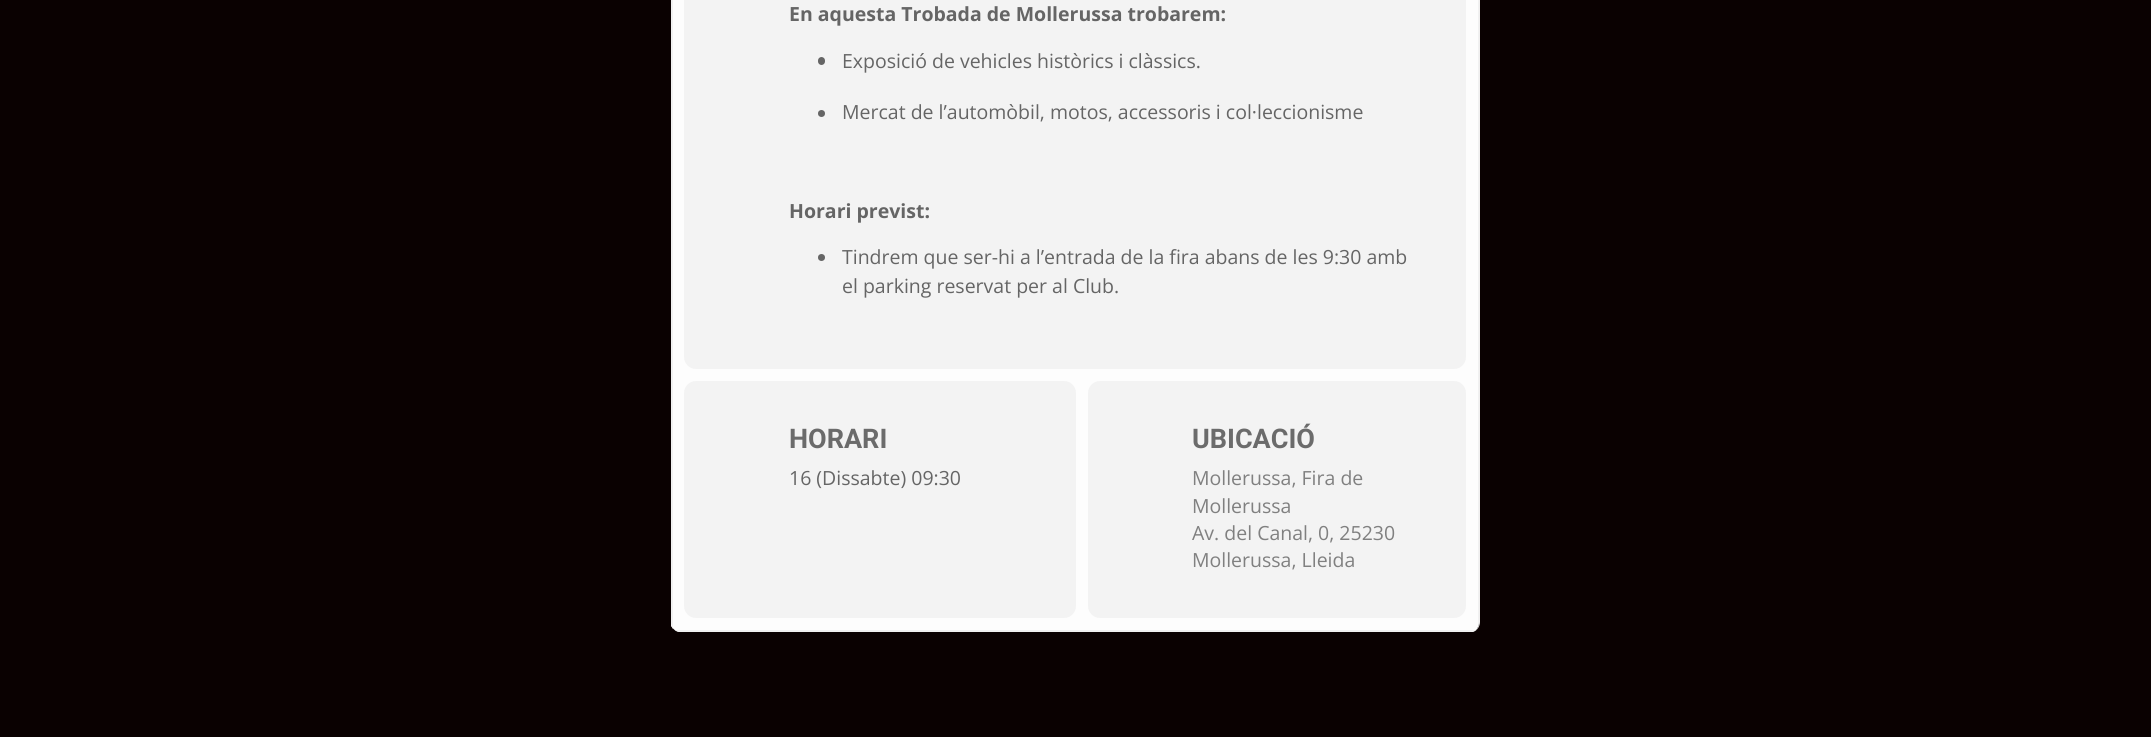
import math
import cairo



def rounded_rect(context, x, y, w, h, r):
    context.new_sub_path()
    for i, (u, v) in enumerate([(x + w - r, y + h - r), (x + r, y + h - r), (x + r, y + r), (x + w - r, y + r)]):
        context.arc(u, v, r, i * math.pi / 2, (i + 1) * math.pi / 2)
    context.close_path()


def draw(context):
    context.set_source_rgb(10 / 255, 1 / 255, 1 / 255)
    context.paint()
    context.set_source_rgb(239 / 255, 238 / 255, 238 / 255)
    context.new_path()
    context.move_to(680, -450)
    context.curve_to(677, -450, 674, -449, 672, -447)
    context.curve_to(673, -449, 676, -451, 679, -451)
    context.line_to(1473, -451)
    context.line_to(1476, -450)
    context.curve_to(1478, -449, 1480, -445, 1480, -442)
    context.line_to(1480, 622)
    context.curve_to(1480, 627, 1476, 632, 1472, 632)
    context.curve_to(1476, 632, 1479, 627, 1479, 622)
    context.line_to(1479, -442)
    context.curve_to(1479, -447, 1476, -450, 1472, -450)
    context.close_path()
    context.fill()
    context.set_source_rgb(253 / 255, 253 / 255, 253 / 255)
    context.new_path()
    context.move_to(671, -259)
    context.line_to(671, 626)
    context.curve_to(673, 629, 676, 632, 680, 632)
    context.line_to(1472, 632)
    context.curve_to(1476, 632, 1479, 627, 1479, 622)
    context.line_to(1479, -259)
    context.close_path()
    context.fill()
    context.set_source_rgb(241 / 255, 241 / 255, 241 / 255)
    context.new_path()
    context.move_to(1478, -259)
    context.line_to(1479, -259)
    context.line_to(1479, 622)
    context.line_to(1478, 627)
    context.close_path()
    context.fill()
    context.new_path()
    context.move_to(1476, 630)
    context.curve_to(1474, 631, 1473, 632, 1472, 632)
    context.line_to(680, 632)
    context.curve_to(678, 632, 676, 631, 675, 630)
    context.close_path()
    context.fill()
    context.new_path()
    context.move_to(671, -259)
    context.line_to(673, -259)
    context.line_to(673, 629)
    context.curve_to(672, 627, 671, 626, 671, 624)
    context.close_path()
    context.fill()
    context.set_source_rgb(243 / 255, 243 / 255, 243 / 255)
    rounded_rect(context, 684, -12, 782, 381, 12)
    context.fill()
    context.set_source_rgb(101 / 255, 101 / 255, 101 / 255)
    rounded_rect(context, 818, 57, 7, 8, 3.5)
    context.fill()
    context.arc(821.5, 113.5, 3.5, 0, 2 * math.pi)
    context.fill()
    context.arc(821.5, 257.5, 3.5, 0, 2 * math.pi)
    context.fill()
    context.set_source_rgb(243 / 255, 243 / 255, 243 / 255)
    rounded_rect(context, 684, 381, 392, 237, 12)
    context.fill()
    rounded_rect(context, 1088, 381, 378, 237, 12)
    context.fill()
    context.select_font_face("Open Sans", cairo.FontSlant.NORMAL, cairo.FontWeight.BOLD)
    context.set_font_size(19.5)
    context.set_source_rgb(101 / 255, 101 / 255, 101 / 255)
    context.move_to(789, 21)
    context.show_text("En aquesta Trobada de Mollerussa trobarem:")
    context.select_font_face("Open Sans")
    context.move_to(842, 68)
    context.show_text("Exposició de vehicles històrics i clàssics.")
    context.move_to(842, 119)
    context.show_text("Mercat de l’automòbil, motos, accessoris i col·leccionisme")
    context.select_font_face("Open Sans", cairo.FontSlant.NORMAL, cairo.FontWeight.BOLD)
    context.move_to(789, 218)
    context.show_text("Horari previst:")
    context.select_font_face("Open Sans")
    context.move_to(842, 264)
    context.show_text("Tindrem que ser-hi a l’entrada de la fira abans de les 9:30 amb")
    context.move_to(842, 293)
    context.show_text("el parking reservat per al Club.")
    context.select_font_face("Roboto", cairo.FontSlant.NORMAL, cairo.FontWeight.BOLD)
    context.set_font_size(27)
    context.set_source_rgb(107 / 255, 107 / 255, 107 / 255)
    context.move_to(789, 448)
    context.show_text("HORARI")
    context.select_font_face("Open Sans")
    context.set_font_size(19.5)
    context.set_source_rgb(101 / 255, 101 / 255, 101 / 255)
    context.move_to(789, 485)
    context.show_text("16 (Dissabte) 09:30")
    context.select_font_face("Roboto", cairo.FontSlant.NORMAL, cairo.FontWeight.BOLD)
    context.set_font_size(27)
    context.set_source_rgb(107 / 255, 107 / 255, 107 / 255)
    context.move_to(1192, 448)
    context.show_text("UBICACIÓ")
    context.select_font_face("Open Sans")
    context.set_font_size(19.5)
    context.set_source_rgb(128 / 255, 128 / 255, 128 / 255)
    context.move_to(1192, 485)
    context.show_text("Mollerussa, Fira de")
    context.move_to(1192, 513)
    context.show_text("Mollerussa")
    context.move_to(1192, 540)
    context.show_text("Av. del Canal, 0, 25230")
    context.move_to(1192, 567)
    context.show_text("Mollerussa, Lleida")


surface = cairo.ImageSurface(cairo.Format.RGB24, 2151, 737)
context = cairo.Context(surface)
options = cairo.FontOptions()
options.set_hint_metrics(cairo.HintMetrics.OFF)
options.set_hint_style(cairo.HintStyle.NONE)
context.set_font_options(options)
context.set_miter_limit(4)
draw(context)
surface.write_to_png("out.png")
